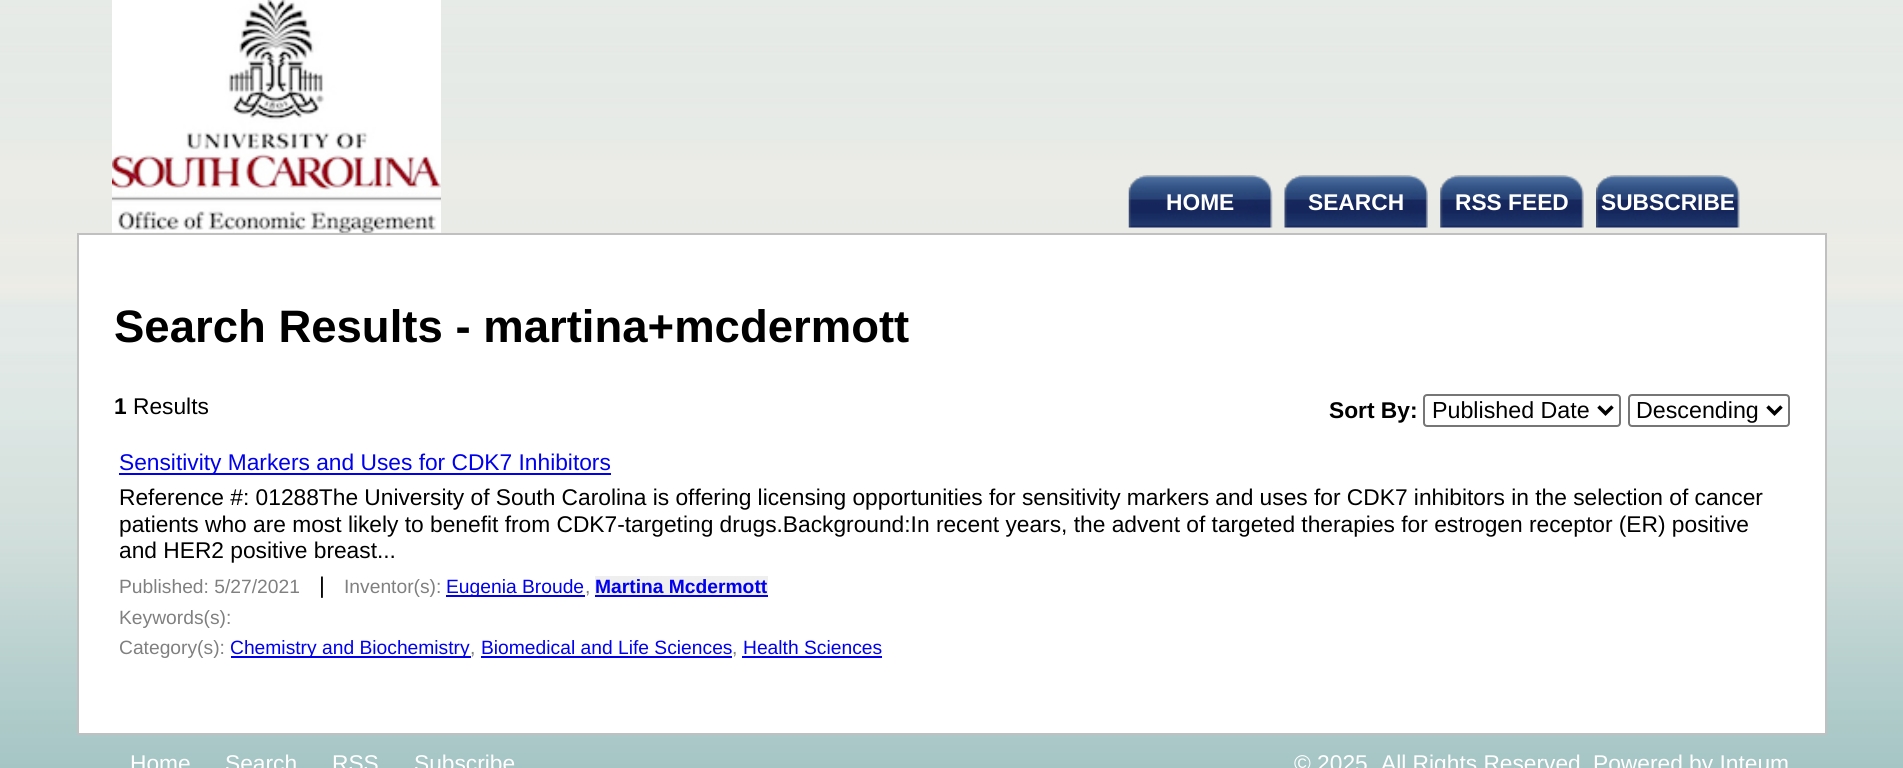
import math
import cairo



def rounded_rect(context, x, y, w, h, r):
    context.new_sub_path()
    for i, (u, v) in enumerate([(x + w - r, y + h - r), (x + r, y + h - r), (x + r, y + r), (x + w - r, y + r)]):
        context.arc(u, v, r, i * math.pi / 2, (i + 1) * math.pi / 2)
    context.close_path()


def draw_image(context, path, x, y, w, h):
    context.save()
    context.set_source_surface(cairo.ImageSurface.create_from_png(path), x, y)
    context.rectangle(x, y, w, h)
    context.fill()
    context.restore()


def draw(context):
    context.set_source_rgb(1, 1, 1)
    context.paint()
    draw_image(context, "images/1.png", 0, 0, 1903, 768)
    draw_image(context, "images/2.png", 112, 0, 329, 233)
    draw_image(context, "images/3.png", 1128, 175, 145, 53)
    draw_image(context, "images/4.png", 1284, 175, 144, 53)
    draw_image(context, "images/5.png", 1440, 175, 144, 53)
    draw_image(context, "images/6.png", 1596, 175, 144, 53)
    context.set_source_rgb(1, 1, 1)
    context.rectangle(78, 234, 1748, 500)
    context.fill_preserve()
    context.set_source_rgb(192 / 255, 192 / 255, 192 / 255)
    context.stroke()
    rounded_rect(context, 1424, 395, 196, 31, 3)
    context.set_source_rgb(118 / 255, 118 / 255, 118 / 255)
    context.stroke()
    context.new_path()
    context.move_to(1598.5, 406.5)
    context.line_to(1605.5, 413.5)
    context.line_to(1612.5, 406.5)
    context.set_source_rgb(0, 0, 0)
    context.set_line_width(3.5)
    context.stroke()
    rounded_rect(context, 1629, 395, 160, 31, 3)
    context.set_source_rgb(118 / 255, 118 / 255, 118 / 255)
    context.set_line_width(2)
    context.stroke()
    context.new_path()
    context.move_to(1767.5, 406.5)
    context.line_to(1774.5, 413.5)
    context.line_to(1781.5, 406.5)
    context.set_source_rgb(0, 0, 0)
    context.set_line_width(3.5)
    context.stroke()
    context.set_source_rgb(0, 0, 238 / 255)
    context.rectangle(119, 473, 492, 2)
    context.fill()
    context.rectangle(446, 595, 139, 2)
    context.fill()
    context.rectangle(595, 595, 173, 2)
    context.fill()
    context.set_source_rgb(239 / 255, 239 / 255, 239 / 255)
    context.rectangle(595, 576, 173, 19)
    context.fill()
    context.set_source_rgb(0, 0, 238 / 255)
    context.rectangle(231, 656, 240, 2)
    context.fill()
    context.rectangle(481, 656, 251, 2)
    context.fill()
    context.rectangle(742, 656, 140, 2)
    context.fill()
    context.select_font_face("Liberation Sans", cairo.FontSlant.NORMAL, cairo.FontWeight.BOLD)
    context.set_font_size(22.75)
    context.set_source_rgb(1, 1, 1)
    context.move_to(1166, 210)
    context.show_text("HOME")
    context.move_to(1308, 210)
    context.show_text("SEARCH")
    context.move_to(1455, 210)
    context.show_text("RSS FEED")
    context.move_to(1601, 210)
    context.show_text("SUBSCRIBE")
    context.set_font_size(45.5)
    context.set_source_rgb(0, 0, 0)
    context.move_to(114, 342)
    context.show_text("Search Results - martina+mcdermott")
    context.set_font_size(22.75)
    context.move_to(114, 414)
    context.show_text("1")
    context.select_font_face("Liberation Sans")
    context.move_to(133, 414)
    context.show_text("Results")
    context.select_font_face("Liberation Sans", cairo.FontSlant.NORMAL, cairo.FontWeight.BOLD)
    context.move_to(1329, 418)
    context.show_text("Sort By:")
    context.select_font_face("Liberation Sans")
    context.set_font_size(23.25)
    context.move_to(1432, 418)
    context.show_text("Published Date")
    context.move_to(1636, 418)
    context.show_text("Descending")
    context.set_font_size(22.75)
    context.set_source_rgb(0, 0, 238 / 255)
    context.move_to(119, 470)
    context.show_text("Sensitivity Markers and Uses for CDK7 Inhibitors")
    context.set_source_rgb(0, 0, 0)
    context.move_to(119, 505)
    context.show_text("Reference #: 01288The University of South Carolina is offering licensing opportunities for sensitivity markers and uses for CDK7 inhibitors in the selection of cancer")
    context.move_to(119, 532)
    context.show_text("patients who are most likely to benefit from CDK7-targeting drugs.Background:In recent years, the advent of targeted therapies for estrogen receptor (ER) positive")
    context.move_to(119, 558)
    context.show_text("and HER2 positive breast...")
    context.set_font_size(19.25)
    context.set_source_rgb(128 / 255, 128 / 255, 128 / 255)
    context.move_to(119, 593)
    context.show_text("Published: 5/27/2021")
    context.set_font_size(22.75)
    context.set_source_rgb(0, 0, 0)
    context.move_to(319, 593)
    context.show_text("|")
    context.set_font_size(19.25)
    context.set_source_rgb(128 / 255, 128 / 255, 128 / 255)
    context.move_to(344, 593)
    context.show_text("Inventor(s):")
    context.set_source_rgb(0, 0, 238 / 255)
    context.move_to(446, 593)
    context.show_text("Eugenia Broude")
    context.set_source_rgb(128 / 255, 128 / 255, 128 / 255)
    context.move_to(585, 593)
    context.show_text(",")
    context.select_font_face("Liberation Sans", cairo.FontSlant.NORMAL, cairo.FontWeight.BOLD)
    context.set_source_rgb(0, 0, 238 / 255)
    context.move_to(595, 593)
    context.show_text("Martina Mcdermott")
    context.select_font_face("Liberation Sans")
    context.set_source_rgb(128 / 255, 128 / 255, 128 / 255)
    context.move_to(119, 624)
    context.show_text("Keywords(s):")
    context.move_to(119, 654)
    context.show_text("Category(s):")
    context.set_source_rgb(0, 0, 238 / 255)
    context.move_to(230, 654)
    context.show_text("Chemistry and Biochemistry")
    context.set_source_rgb(128 / 255, 128 / 255, 128 / 255)
    context.move_to(470, 654)
    context.show_text(",")
    context.set_source_rgb(0, 0, 238 / 255)
    context.move_to(481, 654)
    context.show_text("Biomedical and Life Sciences")
    context.set_source_rgb(128 / 255, 128 / 255, 128 / 255)
    context.move_to(732, 654)
    context.show_text(",")
    context.set_source_rgb(0, 0, 238 / 255)
    context.move_to(743, 654)
    context.show_text("Health Sciences")
    context.set_font_size(22.75)
    context.set_source_rgb(1, 1, 1)
    context.move_to(130, 771)
    context.show_text("Home")
    context.move_to(225, 771)
    context.show_text("Search")
    context.move_to(332, 771)
    context.show_text("RSS")
    context.move_to(414, 771)
    context.show_text("Subscribe")
    context.move_to(1294, 771)
    context.show_text("© 2025")
    context.move_to(1381, 771)
    context.show_text("All Rights Reserved")
    context.move_to(1593, 771)
    context.show_text("Powered by Inteum")


surface = cairo.ImageSurface(cairo.Format.RGB24, 1903, 768)
context = cairo.Context(surface)
options = cairo.FontOptions()
options.set_hint_metrics(cairo.HintMetrics.OFF)
options.set_hint_style(cairo.HintStyle.NONE)
context.set_font_options(options)
context.set_miter_limit(4)
draw(context)
surface.write_to_png("out.png")
